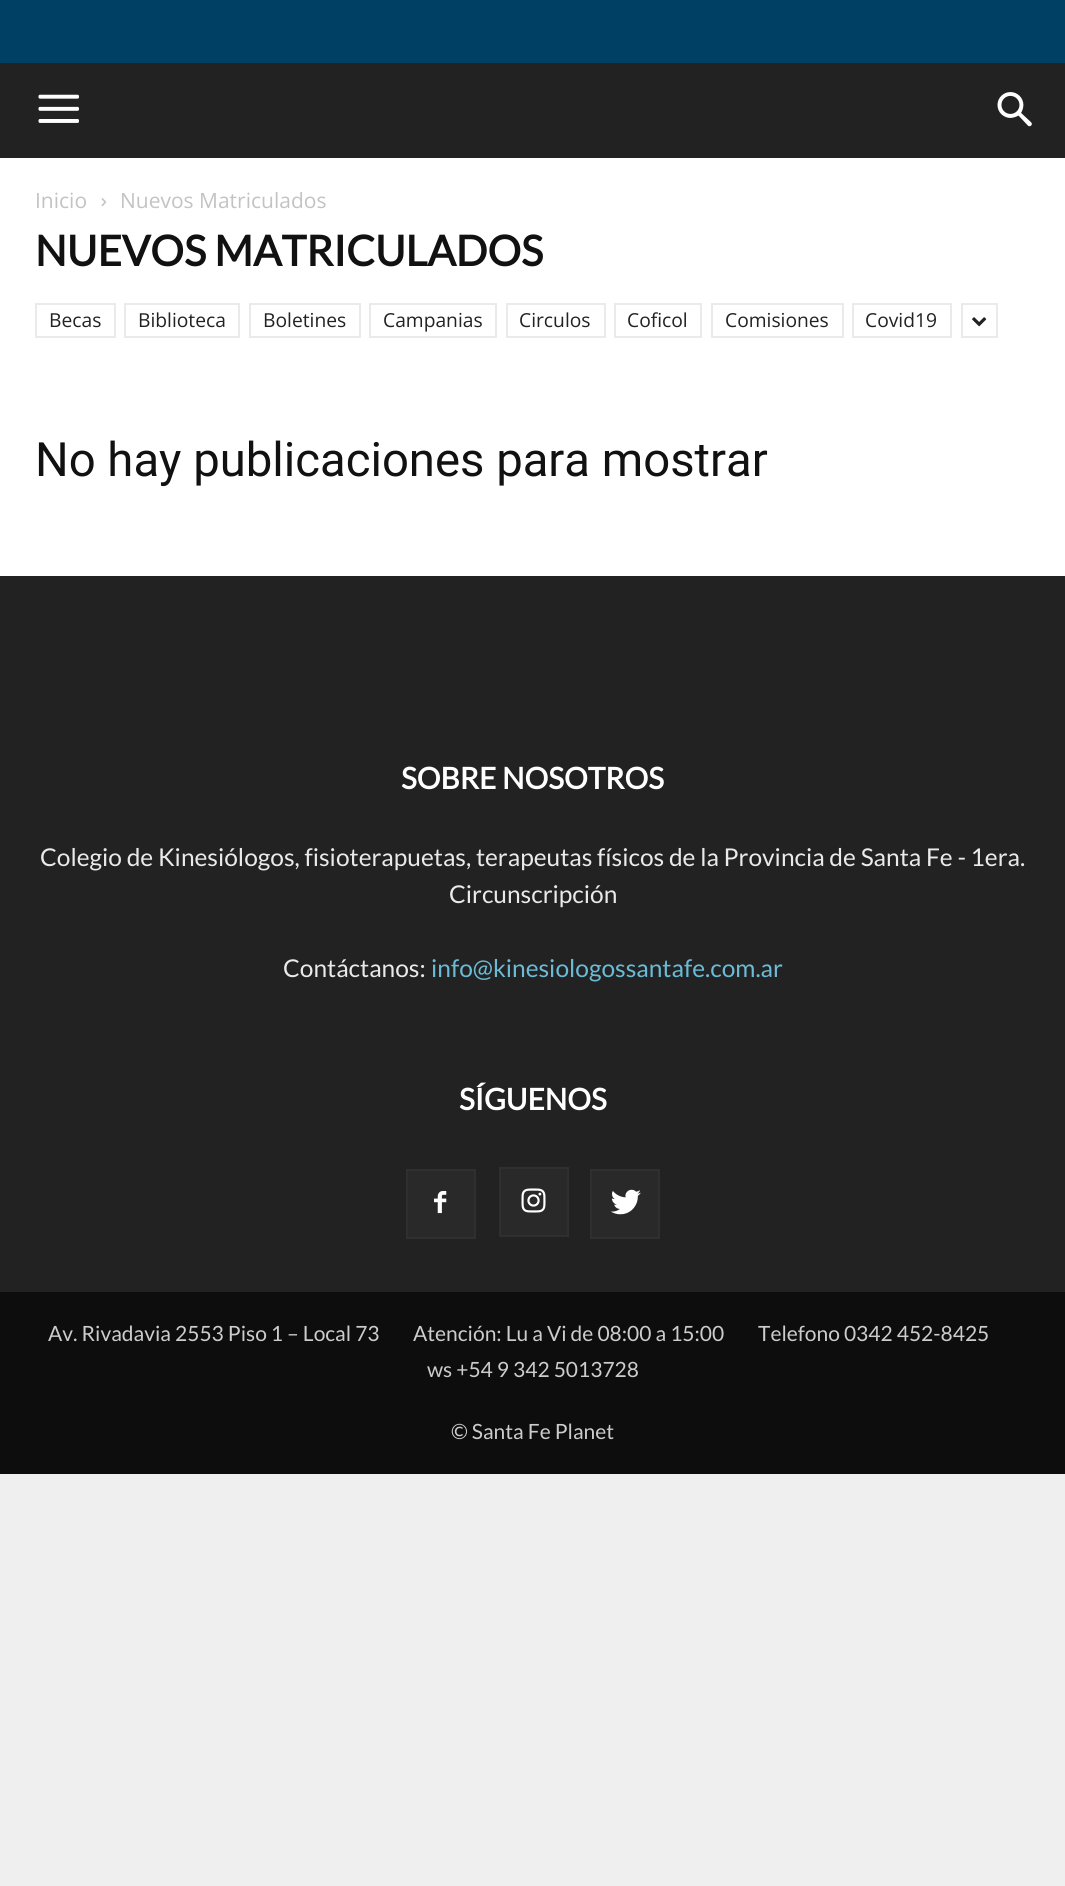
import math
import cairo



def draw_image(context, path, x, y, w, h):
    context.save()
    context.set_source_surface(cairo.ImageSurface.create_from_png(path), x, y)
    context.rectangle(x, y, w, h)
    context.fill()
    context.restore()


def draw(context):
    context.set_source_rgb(239 / 255, 239 / 255, 239 / 255)
    context.paint()
    context.set_source_rgb(0, 64 / 255, 100 / 255)
    context.rectangle(0, 0, 1065, 63)
    context.fill()
    context.set_source_rgb(34 / 255, 34 / 255, 34 / 255)
    context.rectangle(0, 63, 1065, 95)
    context.fill()
    draw_image(context, "images/1.png", 38, 94, 41, 29)
    draw_image(context, "images/2.png", 997, 92, 35, 35)
    context.set_source_rgb(1, 1, 1)
    context.rectangle(0, 158, 1065, 418)
    context.fill()
    draw_image(context, "images/3.png", 101, 198, 6, 9)
    context.rectangle(36, 304, 79, 33)
    context.set_source_rgb(234 / 255, 234 / 255, 234 / 255)
    context.stroke()
    context.rectangle(125, 304, 114, 33)
    context.stroke()
    context.rectangle(250, 304, 110, 33)
    context.stroke()
    context.rectangle(370, 304, 126, 33)
    context.stroke()
    context.rectangle(507, 304, 98, 33)
    context.stroke()
    context.rectangle(615, 304, 86, 33)
    context.stroke()
    context.rectangle(712, 304, 131, 33)
    context.stroke()
    context.rectangle(853, 304, 98, 33)
    context.stroke()
    context.rectangle(962, 304, 35, 33)
    context.stroke()
    draw_image(context, "images/4.png", 972, 317, 15, 10)
    context.set_source_rgb(34 / 255, 34 / 255, 34 / 255)
    context.rectangle(0, 576, 1065, 716)
    context.fill()
    context.set_source_rgb(41 / 255, 41 / 255, 41 / 255)
    context.rectangle(408, 1171, 66, 66)
    context.fill()
    draw_image(context, "images/5.png", 434, 1191, 13, 23)
    context.rectangle(407, 1170, 68, 68)
    context.set_source_rgb(47 / 255, 47 / 255, 47 / 255)
    context.stroke()
    context.set_source_rgb(41 / 255, 41 / 255, 41 / 255)
    context.rectangle(501, 1169, 66, 66)
    context.fill()
    draw_image(context, "images/6.png", 521, 1188, 25, 25)
    context.rectangle(500, 1168, 68, 68)
    context.set_source_rgb(47 / 255, 47 / 255, 47 / 255)
    context.stroke()
    context.set_source_rgb(41 / 255, 41 / 255, 41 / 255)
    context.rectangle(592, 1171, 66, 66)
    context.fill()
    draw_image(context, "images/7.png", 611, 1189, 30, 26)
    context.rectangle(591, 1170, 68, 68)
    context.set_source_rgb(47 / 255, 47 / 255, 47 / 255)
    context.stroke()
    context.set_source_rgb(13 / 255, 13 / 255, 13 / 255)
    context.rectangle(0, 1292, 1065, 182)
    context.fill()
    context.select_font_face("Open Sans")
    context.set_font_size(21)
    context.set_source_rgb(195 / 255, 195 / 255, 195 / 255)
    context.move_to(35, 208)
    context.show_text("Inicio")
    context.move_to(120, 208)
    context.show_text("Nuevos Matriculados")
    context.select_font_face("Lato", cairo.FontSlant.NORMAL, cairo.FontWeight.BOLD)
    context.set_font_size(42)
    context.set_source_rgb(17 / 255, 17 / 255, 17 / 255)
    context.move_to(35, 266)
    context.show_text("NUEVOS MATRICULADOS")
    context.select_font_face("Open Sans")
    context.set_font_size(19.25)
    context.set_source_rgb(34 / 255, 34 / 255, 34 / 255)
    context.move_to(49, 327)
    context.show_text("Becas")
    context.move_to(138, 327)
    context.show_text("Biblioteca")
    context.move_to(263, 327)
    context.show_text("Boletines")
    context.move_to(383, 327)
    context.show_text("Campanias")
    context.move_to(519, 327)
    context.show_text("Circulos")
    context.move_to(627, 327)
    context.show_text("Coficol")
    context.move_to(725, 327)
    context.show_text("Comisiones")
    context.move_to(865, 327)
    context.show_text("Covid19")
    context.select_font_face("Roboto")
    context.set_font_size(47.25)
    context.set_source_rgb(17 / 255, 17 / 255, 17 / 255)
    context.move_to(35, 476)
    context.show_text("No hay publicaciones para mostrar")
    context.select_font_face("Lato", cairo.FontSlant.NORMAL, cairo.FontWeight.BOLD)
    context.set_font_size(29.75)
    context.set_source_rgb(1, 1, 1)
    context.move_to(401, 789)
    context.show_text("SOBRE NOSOTROS")
    context.select_font_face("Lato")
    context.set_font_size(24.5)
    context.set_source_rgb(234 / 255, 234 / 255, 234 / 255)
    context.move_to(40, 866)
    context.show_text("Colegio de Kinesiólogos, fisioterapuetas, terapeutas físicos de la Provincia de Santa Fe - 1era.")
    context.move_to(449, 903)
    context.show_text("Circunscripción")
    context.move_to(283, 977)
    context.show_text("Contáctanos:")
    context.set_source_rgb(107 / 255, 187 / 255, 214 / 255)
    context.move_to(431, 977)
    context.show_text("info@kinesiologossantafe.com.ar")
    context.select_font_face("Lato", cairo.FontSlant.NORMAL, cairo.FontWeight.BOLD)
    context.set_font_size(29.75)
    context.set_source_rgb(1, 1, 1)
    context.move_to(459, 1110)
    context.show_text("SÍGUENOS")
    context.select_font_face("Lato")
    context.set_font_size(21)
    context.set_source_rgb(204 / 255, 204 / 255, 204 / 255)
    context.move_to(48, 1341)
    context.show_text("Av. Rivadavia 2553 Piso 1 – Local 73")
    context.move_to(413, 1341)
    context.show_text("Atención: Lu a Vi de 08:00 a 15:00")
    context.move_to(758, 1341)
    context.show_text("Telefono 0342 452-8425")
    context.move_to(427, 1377)
    context.show_text("ws +54 9 342 5013728")
    context.move_to(451, 1439)
    context.show_text("© Santa Fe Planet")


surface = cairo.ImageSurface(cairo.Format.RGB24, 1065, 1886)
context = cairo.Context(surface)
options = cairo.FontOptions()
options.set_hint_metrics(cairo.HintMetrics.OFF)
options.set_hint_style(cairo.HintStyle.NONE)
context.set_font_options(options)
context.set_miter_limit(4)
draw(context)
surface.write_to_png("out.png")
